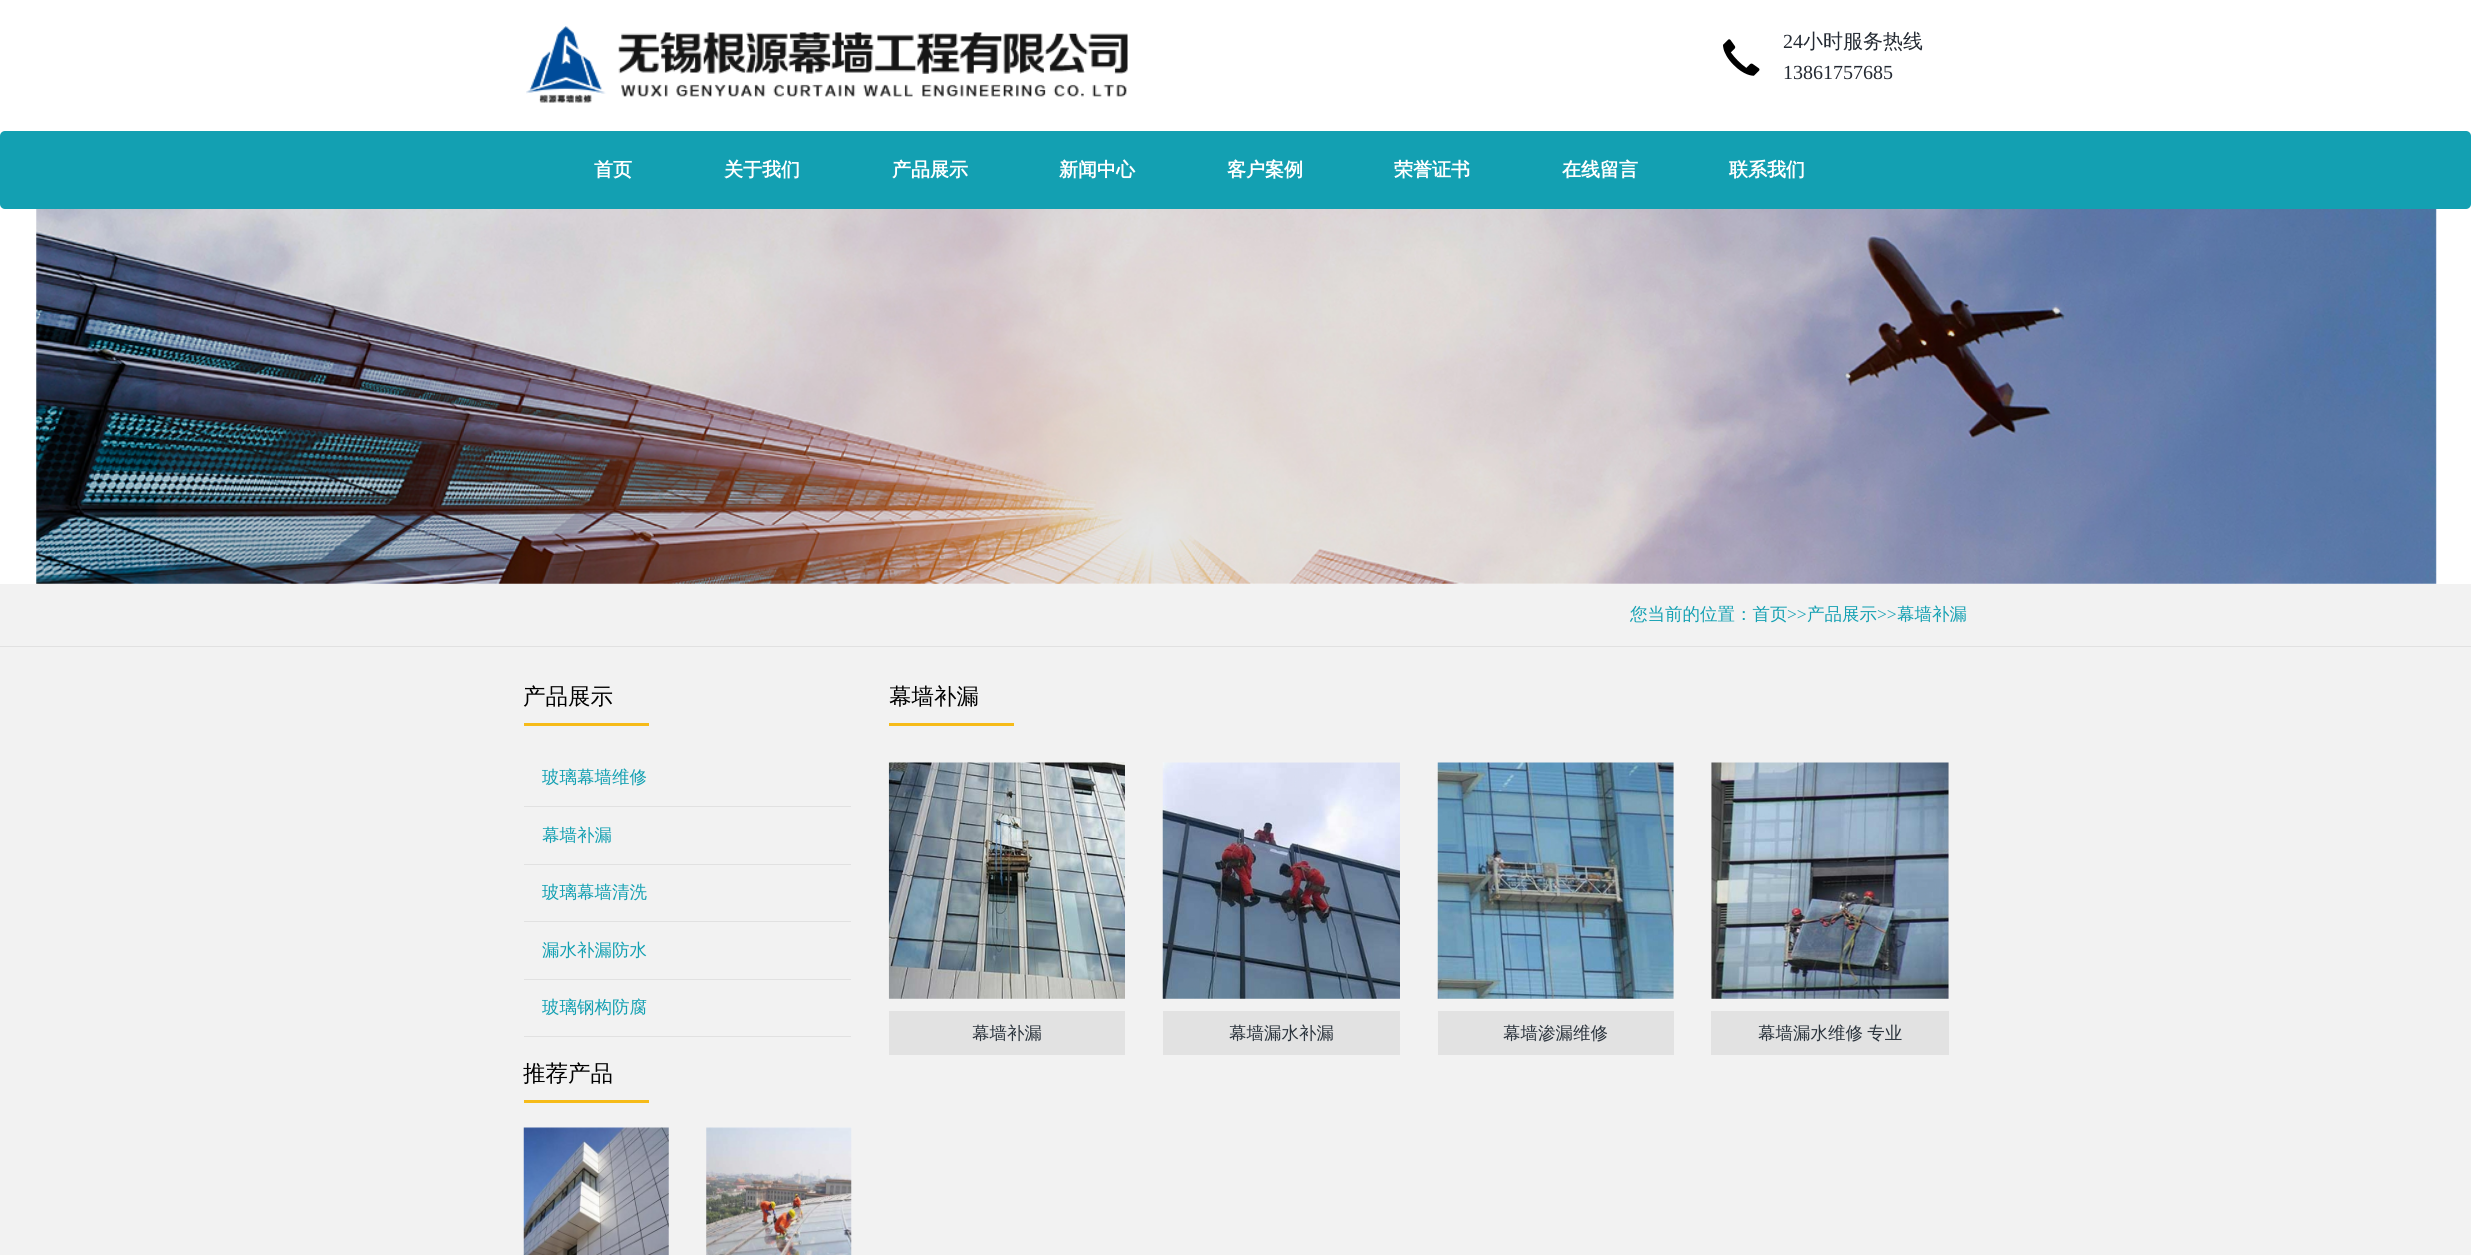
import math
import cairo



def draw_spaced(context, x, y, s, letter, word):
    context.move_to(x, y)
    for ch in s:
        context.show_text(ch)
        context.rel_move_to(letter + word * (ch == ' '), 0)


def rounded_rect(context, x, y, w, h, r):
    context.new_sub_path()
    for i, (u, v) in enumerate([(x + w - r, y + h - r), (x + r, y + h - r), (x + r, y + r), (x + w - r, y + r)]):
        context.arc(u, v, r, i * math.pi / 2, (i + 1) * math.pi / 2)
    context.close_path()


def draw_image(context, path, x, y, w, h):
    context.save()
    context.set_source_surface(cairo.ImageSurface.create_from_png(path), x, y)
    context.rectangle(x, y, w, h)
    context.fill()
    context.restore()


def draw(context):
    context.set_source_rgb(1, 1, 1)
    context.paint()
    draw_image(context, "images/1.png", 526, 26, 602, 77)
    draw_image(context, "images/2.png", 1723, 39, 37, 37)
    context.set_source_rgb(19 / 255, 160 / 255, 178 / 255)
    rounded_rect(context, 0, 131, 2471, 78, 5)
    context.fill()
    draw_image(context, "images/3.png", 36, 209, 2401, 375)
    context.set_source_rgb(242 / 255, 242 / 255, 242 / 255)
    context.rectangle(0, 584, 2471, 671)
    context.fill()
    context.set_source_rgb(225 / 255, 225 / 255, 225 / 255)
    context.rectangle(0, 646, 2471, 1)
    context.fill()
    context.set_source_rgb(246 / 255, 187 / 255, 25 / 255)
    context.rectangle(524, 723, 125, 3)
    context.fill()
    context.set_source_rgb(225 / 255, 225 / 255, 225 / 255)
    context.rectangle(524, 806, 327, 1)
    context.fill()
    context.rectangle(524, 864, 327, 1)
    context.fill()
    context.rectangle(524, 921, 327, 1)
    context.fill()
    context.rectangle(524, 979, 327, 1)
    context.fill()
    context.rectangle(524, 1036, 327, 1)
    context.fill()
    context.set_source_rgb(246 / 255, 187 / 255, 25 / 255)
    context.rectangle(524, 1100, 125, 3)
    context.fill()
    draw_image(context, "images/4.png", 523, 1127, 146, 128)
    draw_image(context, "images/5.png", 706, 1127, 146, 128)
    context.rectangle(889, 723, 125, 3)
    context.fill()
    draw_image(context, "images/6.png", 888, 762, 237, 237)
    context.set_source_rgb(226 / 255, 226 / 255, 226 / 255)
    context.rectangle(889, 1011, 236, 44)
    context.fill()
    draw_image(context, "images/7.png", 1162, 762, 238, 237)
    context.rectangle(1163, 1011, 237, 44)
    context.fill()
    draw_image(context, "images/8.png", 1437, 762, 237, 237)
    context.rectangle(1438, 1011, 236, 44)
    context.fill()
    draw_image(context, "images/9.png", 1711, 762, 238, 237)
    context.rectangle(1711, 1011, 238, 44)
    context.fill()
    context.select_font_face("Liberation Serif")
    context.set_font_size(20)
    context.set_source_rgb(35 / 255, 41 / 255, 50 / 255)
    context.move_to(1783, 48)
    context.show_text("24")
    context.select_font_face("WenQuanYi Zen Hei Medium")
    context.move_to(1803, 48)
    context.show_text("小时服务热线")
    context.select_font_face("Liberation Serif")
    context.move_to(1783, 79)
    context.show_text("13861757685")
    context.select_font_face("WenQuanYi Zen Hei", cairo.FontSlant.NORMAL, cairo.FontWeight.BOLD)
    context.set_font_size(19)
    context.set_source_rgb(1, 1, 1)
    context.move_to(594, 176)
    context.show_text("首页")
    context.move_to(724, 176)
    context.show_text("关于我们")
    context.move_to(892, 176)
    context.show_text("产品展示")
    context.move_to(1059, 176)
    context.show_text("新闻中心")
    context.move_to(1227, 176)
    context.show_text("客户案例")
    context.move_to(1394, 176)
    context.show_text("荣誉证书")
    context.move_to(1562, 176)
    context.show_text("在线留言")
    context.move_to(1729, 176)
    context.show_text("联系我们")
    context.select_font_face("WenQuanYi Zen Hei Medium")
    context.set_font_size(17.5)
    context.set_source_rgb(19 / 255, 160 / 255, 178 / 255)
    context.move_to(1630, 620)
    context.show_text("您当前的位置：首页")
    context.select_font_face("Liberation Serif")
    context.move_to(1787, 620)
    context.show_text(">>")
    context.select_font_face("WenQuanYi Zen Hei Medium")
    context.move_to(1807, 620)
    context.show_text("产品展示")
    context.select_font_face("Liberation Serif")
    context.move_to(1877, 620)
    context.show_text(">>")
    context.select_font_face("WenQuanYi Zen Hei Medium")
    context.move_to(1897, 620)
    context.show_text("幕墙补漏")
    context.set_font_size(22.5)
    context.set_source_rgb(0, 0, 0)
    context.move_to(523, 704)
    context.show_text("产品展示")
    context.set_font_size(17.5)
    context.set_source_rgb(19 / 255, 160 / 255, 178 / 255)
    context.move_to(542, 783)
    context.show_text("玻璃幕墙维修")
    context.move_to(542, 841)
    context.show_text("幕墙补漏")
    context.move_to(542, 898)
    context.show_text("玻璃幕墙清洗")
    context.move_to(542, 956)
    context.show_text("漏水补漏防水")
    context.move_to(542, 1013)
    context.show_text("玻璃钢构防腐")
    context.set_font_size(22.5)
    context.set_source_rgb(0, 0, 0)
    context.move_to(523, 1081)
    context.show_text("推荐产品")
    context.move_to(889, 704)
    context.show_text("幕墙补漏")
    context.set_font_size(17.5)
    context.set_source_rgb(42 / 255, 51 / 255, 60 / 255)
    context.move_to(972, 1039)
    context.show_text("幕墙补漏")
    context.move_to(1229, 1039)
    context.show_text("幕墙漏水补漏")
    context.move_to(1503, 1039)
    context.show_text("幕墙渗漏维修")
    draw_spaced(context, 1758, 1039, "幕墙漏水维修 专业", 0, -1)


surface = cairo.ImageSurface(cairo.Format.RGB24, 2471, 1255)
context = cairo.Context(surface)
options = cairo.FontOptions()
options.set_hint_metrics(cairo.HintMetrics.OFF)
options.set_hint_style(cairo.HintStyle.NONE)
context.set_font_options(options)
context.set_miter_limit(4)
draw(context)
surface.write_to_png("out.png")
